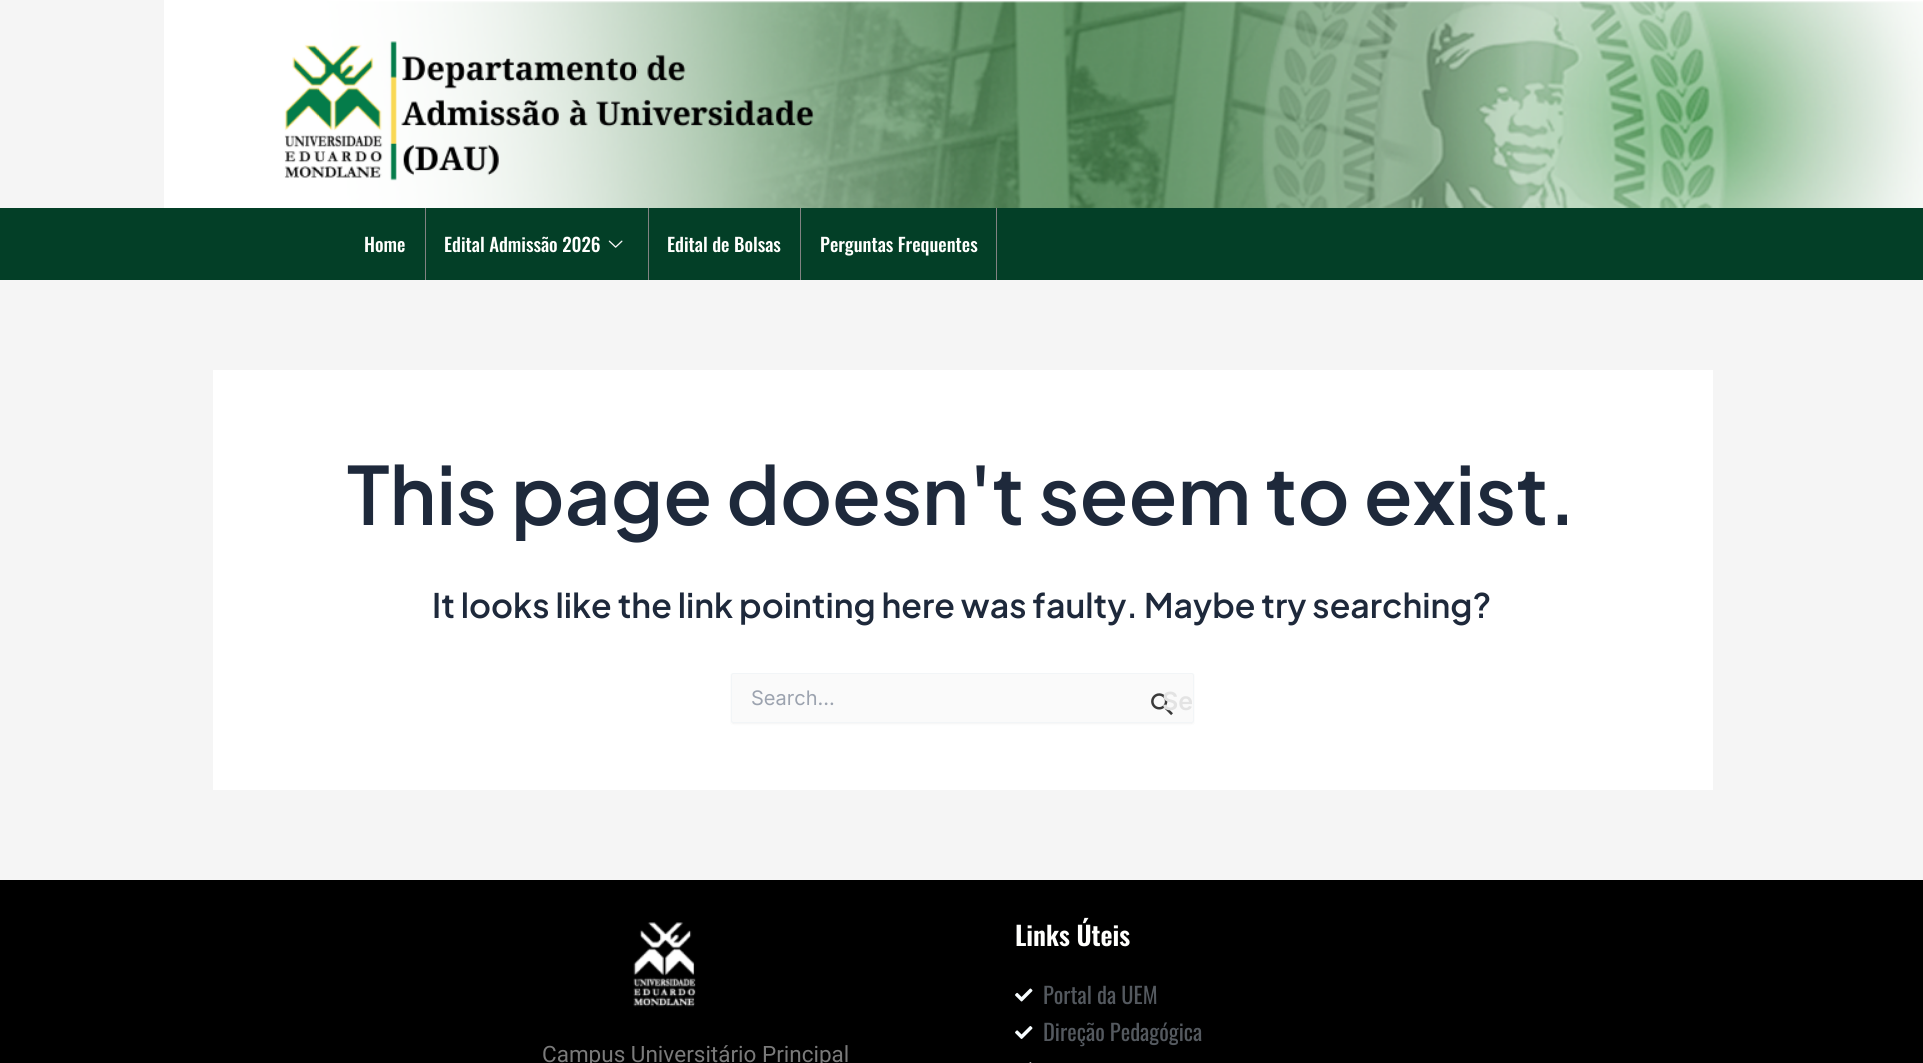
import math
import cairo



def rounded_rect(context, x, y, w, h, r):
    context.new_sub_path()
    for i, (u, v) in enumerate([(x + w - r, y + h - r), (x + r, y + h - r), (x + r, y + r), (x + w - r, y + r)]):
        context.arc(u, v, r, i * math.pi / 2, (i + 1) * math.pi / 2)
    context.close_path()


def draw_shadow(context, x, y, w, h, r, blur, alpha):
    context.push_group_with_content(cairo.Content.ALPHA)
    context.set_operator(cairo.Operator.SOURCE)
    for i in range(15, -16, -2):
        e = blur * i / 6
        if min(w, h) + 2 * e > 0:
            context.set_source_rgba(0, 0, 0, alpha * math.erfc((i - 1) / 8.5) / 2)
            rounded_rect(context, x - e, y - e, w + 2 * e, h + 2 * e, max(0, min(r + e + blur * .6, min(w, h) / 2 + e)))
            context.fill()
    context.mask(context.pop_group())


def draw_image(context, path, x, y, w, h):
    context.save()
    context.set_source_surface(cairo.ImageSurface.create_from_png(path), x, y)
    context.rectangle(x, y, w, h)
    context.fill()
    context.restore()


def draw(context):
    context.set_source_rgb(245 / 255, 245 / 255, 245 / 255)
    context.paint()
    draw_image(context, "images/1.png", 164, 0, 1759, 208)
    context.set_source_rgb(3 / 255, 63 / 255, 39 / 255)
    context.rectangle(0, 208, 1923, 72)
    context.fill()
    context.set_source_rgb(130 / 255, 130 / 255, 130 / 255)
    context.rectangle(425, 208, 1, 72)
    context.fill()
    context.rectangle(648, 208, 1, 72)
    context.fill()
    draw_image(context, "images/2.png", 608, 240, 15, 8)
    context.rectangle(800, 208, 1, 72)
    context.fill()
    context.rectangle(996, 208, 1, 72)
    context.fill()
    context.set_source_rgb(1, 1, 1)
    context.rectangle(213, 370, 1500, 420)
    context.fill()
    context.set_source_rgb(0, 0, 0)
    draw_shadow(context, 731, 674, 463, 50, 2.5, 1, 0.05)
    context.set_source_rgb(250 / 255, 250 / 255, 250 / 255)
    rounded_rect(context, 731.5, 673.5, 462, 49, 2)
    context.fill_preserve()
    context.set_source_rgb(242 / 255, 245 / 255, 247 / 255)
    context.set_line_width(1)
    context.stroke()
    draw_image(context, "images/3.png", 1151, 693, 22, 23)
    context.set_source_rgb(0, 0, 0)
    context.rectangle(0, 880, 1923, 183)
    context.fill()
    draw_image(context, "images/4.png", 1015, 988, 18, 14)
    draw_image(context, "images/5.png", 1015, 1026, 18, 13)
    draw_image(context, "images/6.png", 1029, 1062, 3, 1)
    draw_image(context, "images/7.png", 633, 922, 63, 85)
    context.select_font_face("Oswald Medium")
    context.set_font_size(18.75)
    context.set_source_rgb(1, 1, 253 / 255)
    context.move_to(364, 252)
    context.show_text("Home")
    context.move_to(444, 252)
    context.show_text("Edital Admissão 2026")
    context.move_to(667, 252)
    context.show_text("Edital de Bolsas")
    context.move_to(820, 252)
    context.show_text("Perguntas Frequentes")
    context.select_font_face("Plus Jakarta Sans SemiBold")
    context.set_font_size(80)
    context.set_source_rgb(30 / 255, 41 / 255, 59 / 255)
    context.move_to(347, 525)
    context.show_text("This page doesn't seem to exist.")
    context.set_font_size(33.75)
    context.move_to(432, 618)
    context.show_text("It looks like the link pointing here was faulty. Maybe try searching?")
    context.select_font_face("Inter")
    context.set_font_size(20)
    context.set_source_rgb(156 / 255, 163 / 255, 175 / 255)
    context.move_to(751, 705)
    context.show_text("Search...")
    context.select_font_face("Inter SemiBold")
    context.set_font_size(25)
    context.set_source_rgb(227 / 255, 227 / 255, 227 / 255)
    context.move_to(1162, 710)
    context.show_text("Se")
    context.select_font_face("Oswald SemiBold")
    context.set_font_size(26.25)
    context.set_source_rgb(1, 1, 253 / 255)
    context.move_to(1015, 946)
    context.show_text("Links Úteis")
    context.select_font_face("Oswald")
    context.set_font_size(22.5)
    context.set_source_rgb(84 / 255, 89 / 255, 95 / 255)
    context.move_to(1043, 1004)
    context.show_text("Portal da UEM")
    context.move_to(1043, 1041)
    context.show_text("Direção Pedagógica")
    context.select_font_face("Roboto")
    context.set_source_rgb(122 / 255, 122 / 255, 122 / 255)
    context.move_to(542, 1062)
    context.show_text("Campus Universitário Principal")


surface = cairo.ImageSurface(cairo.Format.RGB24, 1923, 1063)
context = cairo.Context(surface)
options = cairo.FontOptions()
options.set_hint_metrics(cairo.HintMetrics.OFF)
options.set_hint_style(cairo.HintStyle.NONE)
context.set_font_options(options)
context.set_miter_limit(4)
draw(context)
surface.write_to_png("out.png")
